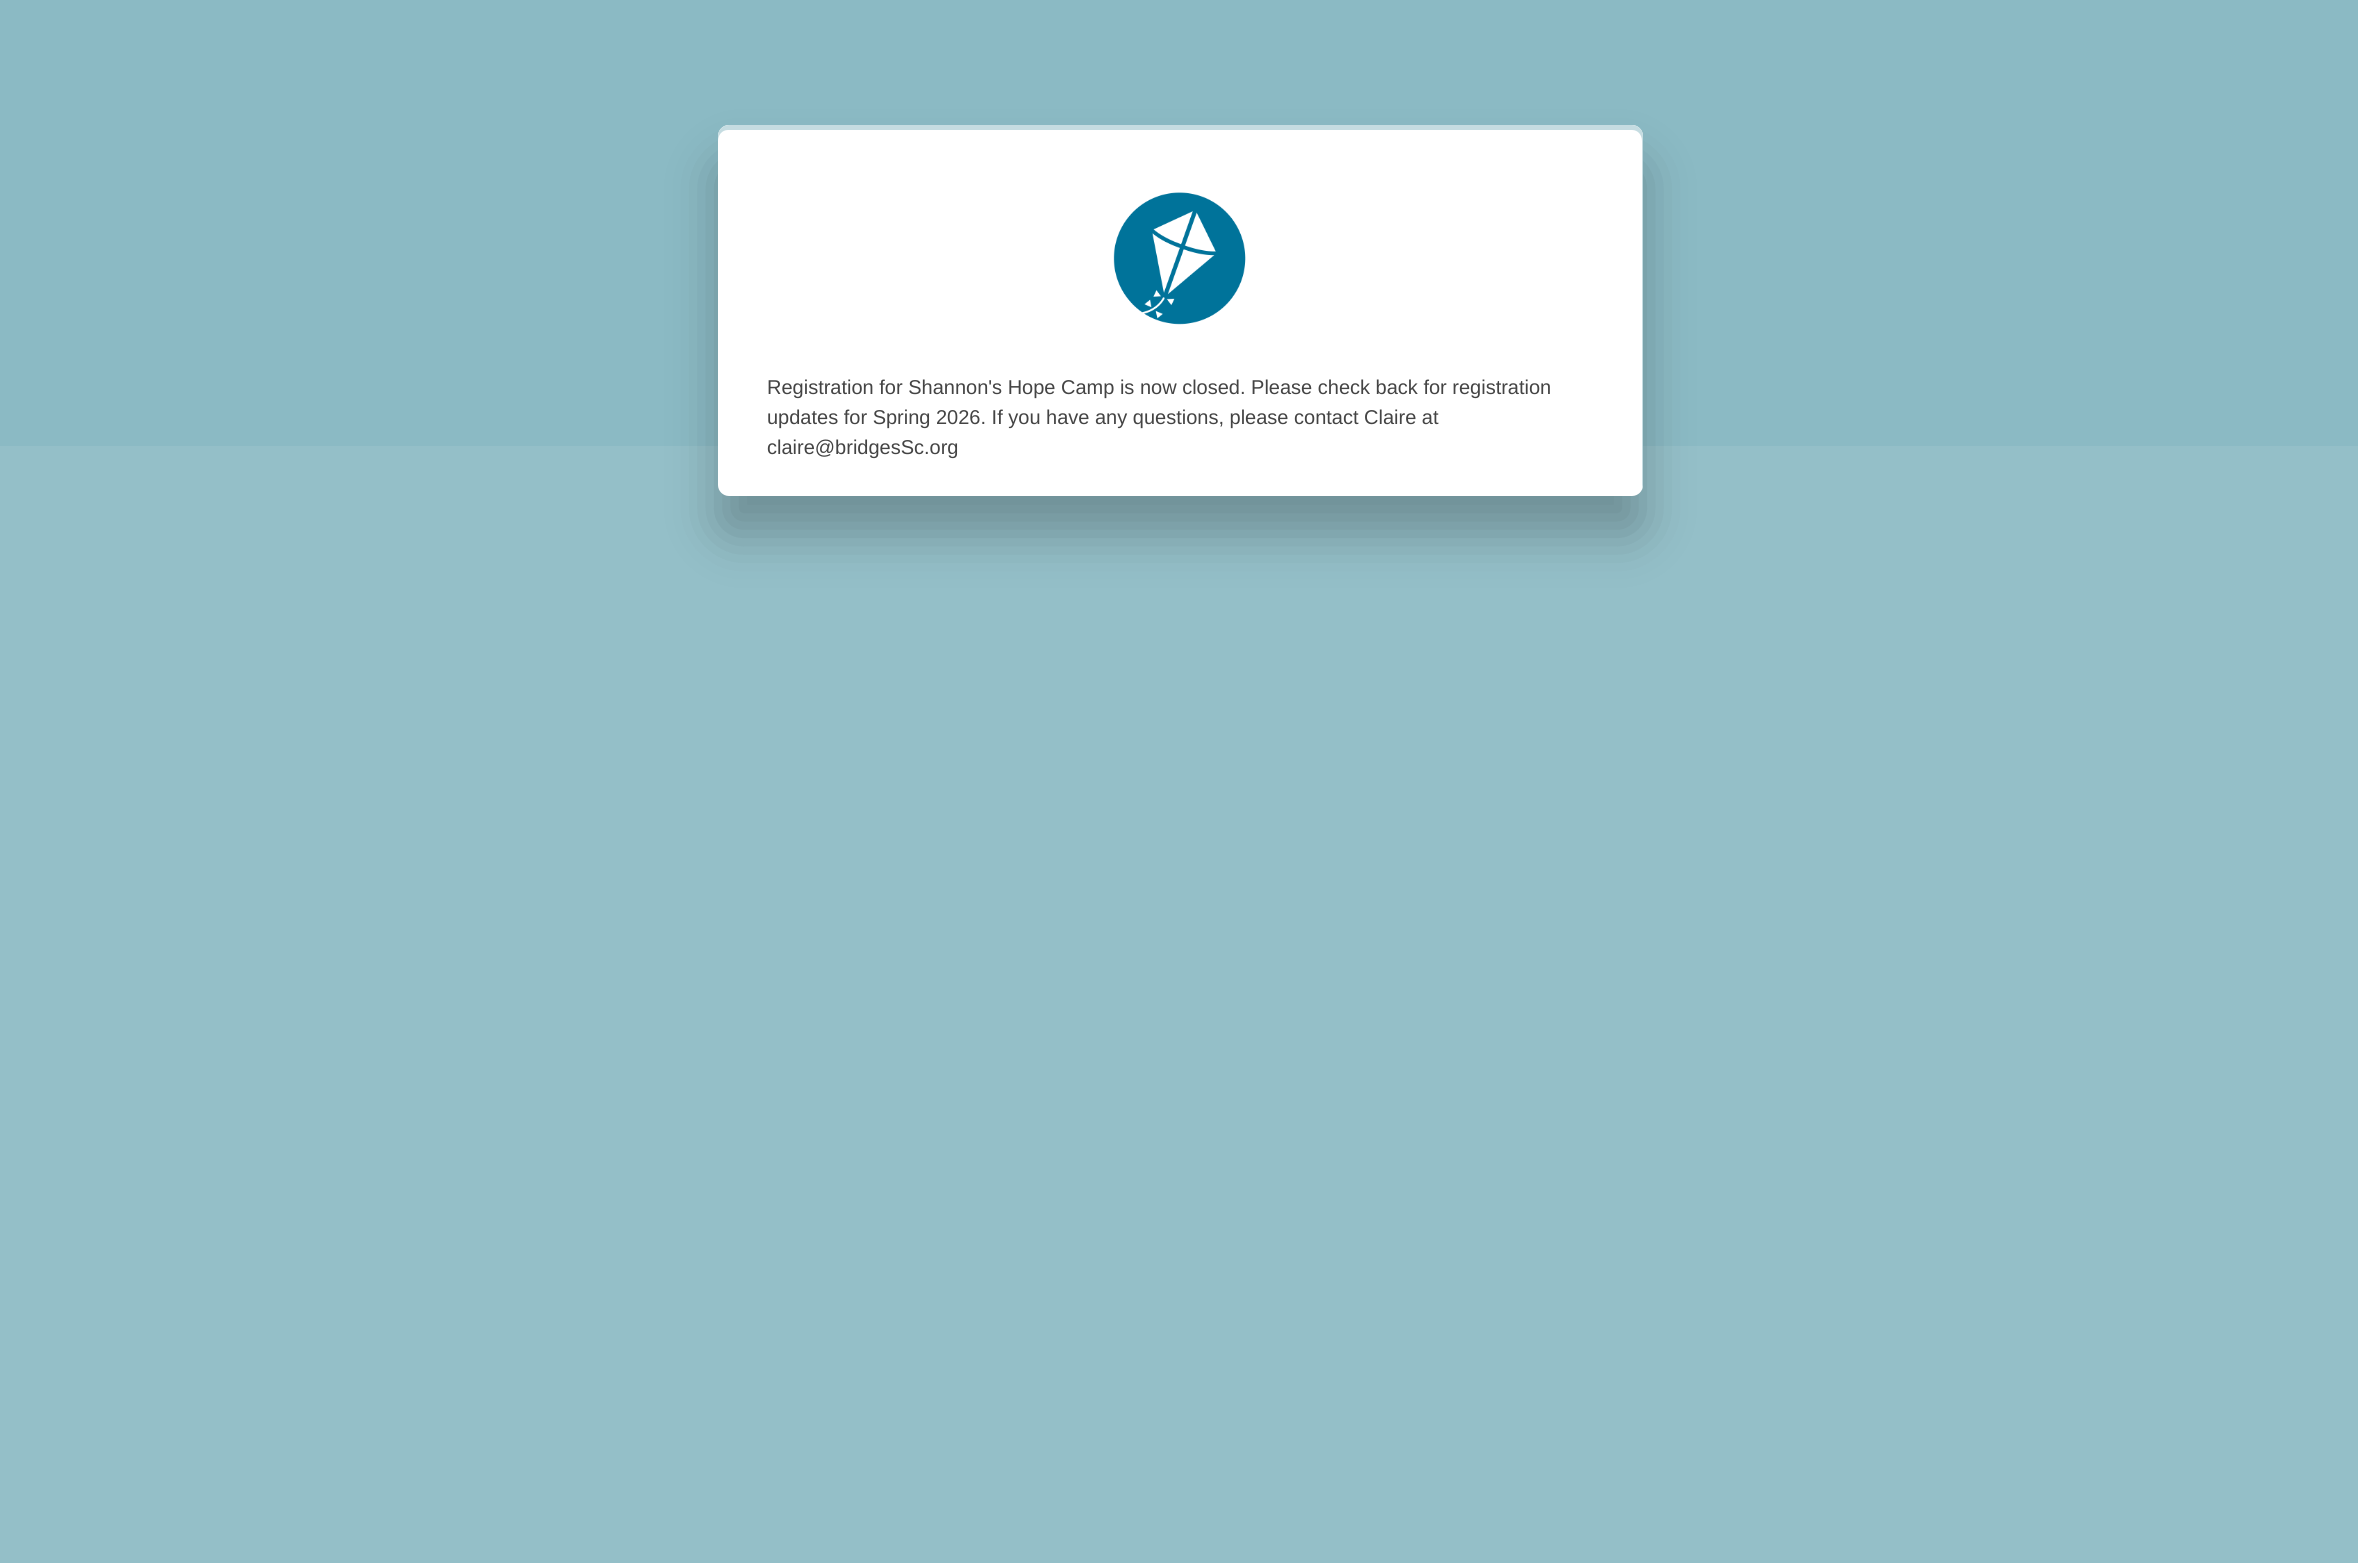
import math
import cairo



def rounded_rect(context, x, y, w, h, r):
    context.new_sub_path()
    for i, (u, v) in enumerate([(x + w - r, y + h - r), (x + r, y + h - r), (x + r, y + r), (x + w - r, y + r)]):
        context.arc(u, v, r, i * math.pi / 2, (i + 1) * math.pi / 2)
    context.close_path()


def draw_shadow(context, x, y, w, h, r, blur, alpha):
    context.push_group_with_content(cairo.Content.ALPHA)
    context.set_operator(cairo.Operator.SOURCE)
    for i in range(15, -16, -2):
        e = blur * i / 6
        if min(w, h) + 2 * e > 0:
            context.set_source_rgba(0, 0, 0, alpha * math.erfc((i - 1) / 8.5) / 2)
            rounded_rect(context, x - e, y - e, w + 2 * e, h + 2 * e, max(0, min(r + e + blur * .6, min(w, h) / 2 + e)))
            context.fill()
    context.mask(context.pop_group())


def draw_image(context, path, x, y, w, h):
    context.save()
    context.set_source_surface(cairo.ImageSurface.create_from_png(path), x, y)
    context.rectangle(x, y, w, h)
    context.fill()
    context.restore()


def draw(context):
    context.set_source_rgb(148 / 255, 191 / 255, 200 / 255)
    context.paint()
    context.set_source_rgb(139 / 255, 186 / 255, 196 / 255)
    context.rectangle(0, 0, 2358, 446)
    context.fill()
    context.set_source_rgb(0, 0, 0)
    draw_shadow(context, 718, 163, 925, 371, 11, 25, 0.25)
    context.set_source_rgb(1, 1, 1)
    rounded_rect(context, 718, 125, 925, 371, 11)
    context.fill()
    context.set_source_rgb(197 / 255, 220 / 255, 225 / 255)
    context.new_path()
    context.move_to(728, 130)
    context.line_to(1632, 130)
    context.curve_to(1638, 130, 1642, 135, 1642, 141)
    context.line_to(1642, 490)
    context.line_to(1643, 485)
    context.line_to(1643, 136)
    context.curve_to(1643, 130, 1638, 125, 1632, 125)
    context.line_to(729, 125)
    context.curve_to(723, 125, 718, 130, 718, 136)
    context.line_to(718, 141)
    context.curve_to(718, 135, 722, 130, 728, 130)
    context.close_path()
    context.fill()
    draw_image(context, "images/1.png", 1113, 192, 133, 133)
    context.select_font_face("Liberation Sans")
    context.set_font_size(20)
    context.set_source_rgb(68 / 255, 68 / 255, 68 / 255)
    context.move_to(767, 394)
    context.show_text("Registration for Shannon's Hope Camp is now closed. Please check back for registration")
    context.move_to(767, 424)
    context.show_text("updates for Spring 2026. If you have any questions, please contact Claire at")
    context.move_to(767, 454)
    context.show_text("claire@bridgesSc.org")


surface = cairo.ImageSurface(cairo.Format.RGB24, 2358, 1563)
context = cairo.Context(surface)
options = cairo.FontOptions()
options.set_hint_metrics(cairo.HintMetrics.OFF)
options.set_hint_style(cairo.HintStyle.NONE)
context.set_font_options(options)
context.set_miter_limit(4)
draw(context)
surface.write_to_png("out.png")
